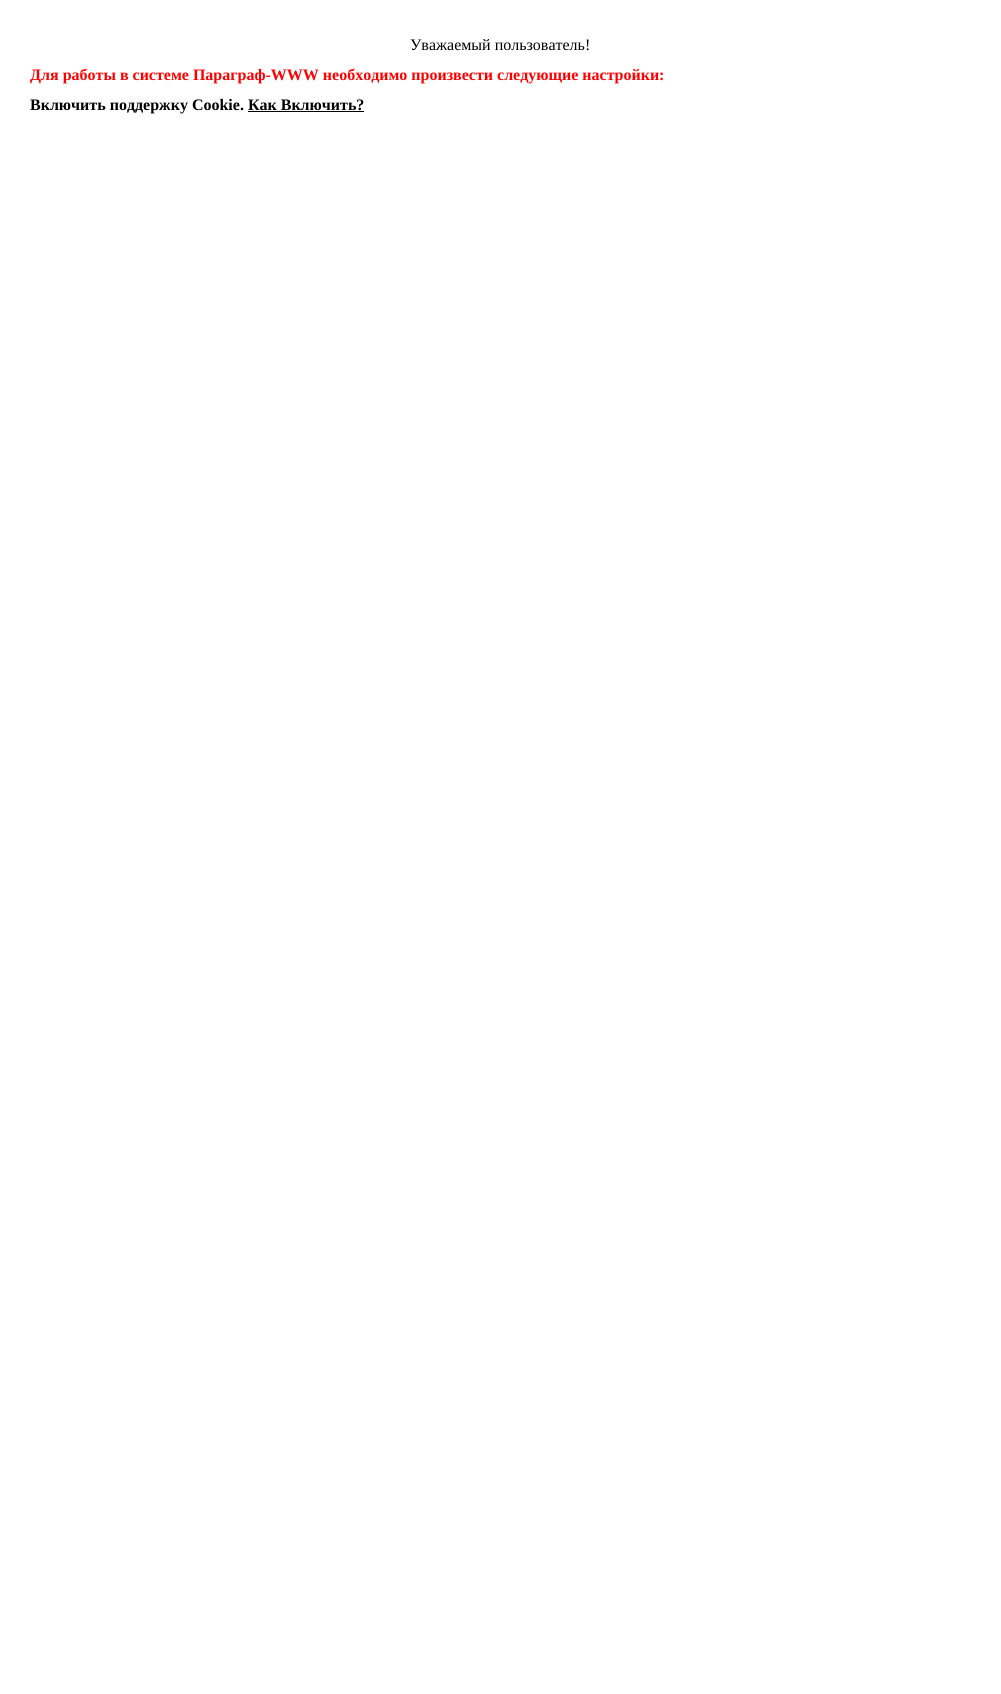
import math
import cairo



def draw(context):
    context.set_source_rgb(1, 1, 1)
    context.paint()
    context.set_source_rgb(0, 0, 0)
    context.rectangle(248, 111, 116, 1)
    context.fill()
    context.select_font_face("Liberation Serif")
    context.set_font_size(16)
    context.move_to(410, 50)
    context.show_text("Уважаемый пользователь!")
    context.select_font_face("Liberation Serif", cairo.FontSlant.NORMAL, cairo.FontWeight.BOLD)
    context.set_source_rgb(1, 0, 0)
    context.move_to(30, 80)
    context.show_text("Для работы в системе Параграф-WWW необходимо произвести следующие настройки:")
    context.set_source_rgb(0, 0, 0)
    context.move_to(30, 110)
    context.show_text("Включить поддержку Cookie. Как Включить?")


surface = cairo.ImageSurface(cairo.Format.RGB24, 1001, 1694)
context = cairo.Context(surface)
options = cairo.FontOptions()
options.set_hint_metrics(cairo.HintMetrics.OFF)
options.set_hint_style(cairo.HintStyle.NONE)
context.set_font_options(options)
context.set_miter_limit(4)
draw(context)
surface.write_to_png("out.png")
